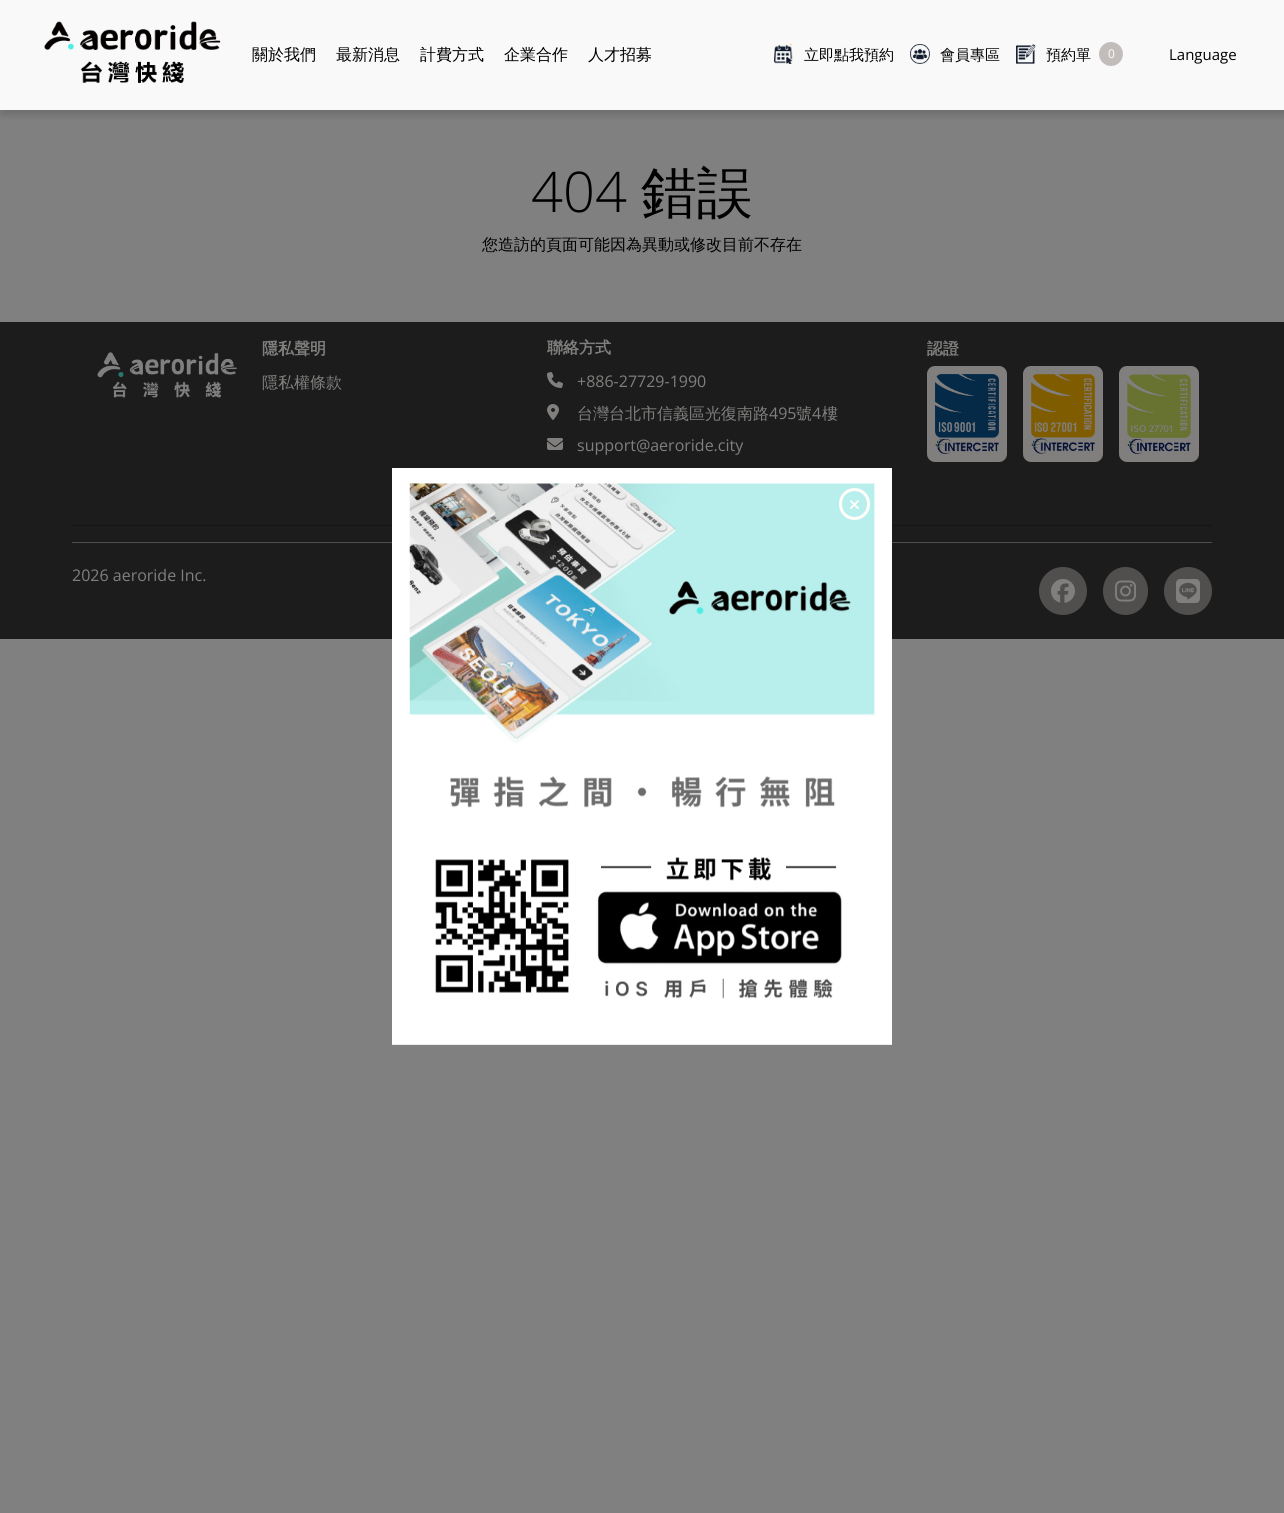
#include <cairo/cairo.h>
#include <math.h>
#include <stddef.h>


static void rounded_rect(cairo_t *cr, double x, double y, double w, double h, double r) {
  cairo_new_sub_path(cr);
  cairo_arc(cr, x + w - r, y + h - r, r, 0, M_PI / 2);
  cairo_arc(cr, x + r, y + h - r, r, M_PI / 2, M_PI);
  cairo_arc(cr, x + r, y + r, r, M_PI, 1.5 * M_PI);
  cairo_arc(cr, x + w - r, y + r, r, 1.5 * M_PI, 2 * M_PI);
  cairo_close_path(cr);
}

static void draw_shadow(cairo_t *cr, double x, double y, double w, double h, double r, double blur, double alpha) {
  cairo_push_group_with_content(cr, CAIRO_CONTENT_ALPHA);
  cairo_set_operator(cr, CAIRO_OPERATOR_SOURCE);
  for (int i = 15; i >= -15 && fmin(w, h) + blur * i / 3 > 0; i -= 2) {
    double e = blur * i / 6;
    cairo_set_source_rgba(cr, 0, 0, 0, alpha * erfc((i - 1) / 8.5) / 2);
    rounded_rect(cr, x - e, y - e, w + 2 * e, h + 2 * e, fmax(0, fmin(r + e + blur * .6, fmin(w, h) / 2 + e)));
    cairo_fill(cr);
  }
  cairo_pattern_t *soft = cairo_pop_group(cr);
  cairo_mask(cr, soft);
  cairo_pattern_destroy(soft);
}

static void draw_image(cairo_t *cr, const char *path, double x, double y, double w, double h) {
  cairo_surface_t *image = cairo_image_surface_create_from_png(path);
  cairo_save(cr);
  cairo_set_source_surface(cr, image, x, y);
  cairo_rectangle(cr, x, y, w, h);
  cairo_fill(cr);
  cairo_restore(cr);
  cairo_surface_destroy(image);
}

static void draw(cairo_t *cr) {
  cairo_set_source_rgb(cr, 128 / 255.0, 128 / 255.0, 128 / 255.0);
  cairo_paint(cr);
  cairo_set_source_rgb(cr, 67 / 255.0, 67 / 255.0, 67 / 255.0);
  draw_shadow(cr, 1, 1, 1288, 114, 0, 3.5, 0.3);
  cairo_set_source_rgb(cr, 249 / 255.0, 249 / 255.0, 249 / 255.0);
  cairo_rectangle(cr, 0, 0, 1284, 110);
  cairo_fill(cr);
  draw_image(cr, "images/1.png", 44, 21, 177, 62);
  draw_image(cr, "images/2.png", 774, 44, 19, 20);
  draw_image(cr, "images/3.png", 910, 44, 20, 20);
  draw_image(cr, "images/4.png", 1016, 44, 20, 20);
  cairo_set_source_rgb(cr, 194 / 255.0, 189 / 255.0, 186 / 255.0);
  cairo_arc(cr, 1111, 54, 12, 0, 2 * M_PI);
  cairo_fill(cr);
  cairo_set_source_rgb(cr, 28 / 255.0, 28 / 255.0, 28 / 255.0);
  cairo_rectangle(cr, 0, 322, 1284, 317);
  cairo_fill(cr);
  draw_image(cr, "images/5.png", 547, 372, 16, 16);
  draw_image(cr, "images/6.png", 547, 404, 12, 16);
  draw_image(cr, "images/7.png", 547, 438, 16, 12);
  cairo_set_source_rgb(cr, 128 / 255.0, 127 / 255.0, 126 / 255.0);
  rounded_rect(cr, 927, 366, 80, 96, 8);
  cairo_fill(cr);
  draw_image(cr, "images/8.png", 935, 374, 64, 80);
  rounded_rect(cr, 1023, 366, 80, 96, 8);
  cairo_fill(cr);
  draw_image(cr, "images/9.png", 1031, 374, 64, 80);
  rounded_rect(cr, 1119, 366, 80, 96, 8);
  cairo_fill(cr);
  draw_image(cr, "images/10.png", 1127, 374, 64, 80);
  draw_image(cr, "images/11.png", 97, 352, 140, 46);
  cairo_set_source_rgb(cr, 21 / 255.0, 21 / 255.0, 21 / 255.0);
  cairo_rectangle(cr, 72, 525, 1140, 1);
  cairo_fill(cr);
  cairo_set_source_rgb(cr, 81 / 255.0, 79 / 255.0, 78 / 255.0);
  cairo_rectangle(cr, 72, 542, 1140, 1);
  cairo_fill(cr);
  cairo_arc(cr, 1063, 591, 24, 0, 2 * M_PI);
  cairo_fill(cr);
  draw_image(cr, "images/12.png", 1051, 579, 24, 24);
  cairo_new_path(cr);
  cairo_move_to(cr, 1125.5, 567);
  cairo_curve_to(cr, 1138, 567, 1148, 577.5, 1148, 591);
  cairo_curve_to(cr, 1148, 604.5, 1138, 615, 1125.5, 615);
  cairo_curve_to(cr, 1113, 615, 1103, 604.5, 1103, 591);
  cairo_curve_to(cr, 1103, 577.5, 1113, 567, 1125.5, 567);
  cairo_close_path(cr);
  cairo_fill(cr);
  draw_image(cr, "images/13.png", 1115, 580, 21, 22);
  cairo_arc(cr, 1188, 591, 24, 0, 2 * M_PI);
  cairo_fill(cr);
  draw_image(cr, "images/14.png", 1176, 579, 24, 24);
  draw_image(cr, "images/15.png", 392, 468, 500, 577);
  rounded_rect(cr, 840.5, 489.5, 28, 29, 14);
  cairo_set_source_rgb(cr, 1, 254 / 255.0, 251 / 255.0);
  cairo_set_line_width(cr, 3);
  cairo_stroke(cr);
  draw_image(cr, "images/16.png", 850, 500, 9, 9);
  cairo_select_font_face(cr, "WenQuanYi Zen Hei Medium", CAIRO_FONT_SLANT_NORMAL, CAIRO_FONT_WEIGHT_NORMAL);
  cairo_set_font_size(cr, 16);
  cairo_set_source_rgb(cr, 0, 0, 0);
  cairo_move_to(cr, 252, 60);
  cairo_show_text(cr, "關於我們");
  cairo_move_to(cr, 336, 60);
  cairo_show_text(cr, "最新消息");
  cairo_move_to(cr, 420, 60);
  cairo_show_text(cr, "計費方式");
  cairo_move_to(cr, 504, 60);
  cairo_show_text(cr, "企業合作");
  cairo_move_to(cr, 588, 60);
  cairo_show_text(cr, "人才招募");
  cairo_set_font_size(cr, 15);
  cairo_move_to(cr, 804, 60);
  cairo_show_text(cr, "立即點我預約");
  cairo_move_to(cr, 940, 60);
  cairo_show_text(cr, "會員專區");
  cairo_move_to(cr, 1046, 60);
  cairo_show_text(cr, "預約單");
  cairo_select_font_face(cr, "Open Sans", CAIRO_FONT_SLANT_NORMAL, CAIRO_FONT_WEIGHT_NORMAL);
  cairo_set_font_size(cr, 12);
  cairo_set_source_rgb(cr, 1, 254 / 255.0, 251 / 255.0);
  cairo_move_to(cr, 1108, 58);
  cairo_show_text(cr, "0");
  cairo_set_font_size(cr, 15);
  cairo_set_source_rgb(cr, 0, 0, 0);
  cairo_move_to(cr, 1169, 60);
  cairo_show_text(cr, "Language");
  cairo_select_font_face(cr, "Open Sans Light", CAIRO_FONT_SLANT_NORMAL, CAIRO_FONT_WEIGHT_NORMAL);
  cairo_set_font_size(cr, 56);
  cairo_move_to(cr, 531, 212);
  cairo_show_text(cr, "404");
  cairo_select_font_face(cr, "WenQuanYi Zen Hei Medium", CAIRO_FONT_SLANT_NORMAL, CAIRO_FONT_WEIGHT_NORMAL);
  cairo_move_to(cr, 641, 212);
  cairo_show_text(cr, "錯誤");
  cairo_set_font_size(cr, 16);
  cairo_move_to(cr, 482, 250);
  cairo_show_text(cr, "您造訪的頁面可能因為異動或修改目前不存在");
  cairo_select_font_face(cr, "WenQuanYi Zen Hei", CAIRO_FONT_SLANT_NORMAL, CAIRO_FONT_WEIGHT_BOLD);
  cairo_set_source_rgb(cr, 128 / 255.0, 127 / 255.0, 126 / 255.0);
  cairo_move_to(cr, 262, 354);
  cairo_show_text(cr, "隱私聲明");
  cairo_select_font_face(cr, "WenQuanYi Zen Hei Medium", CAIRO_FONT_SLANT_NORMAL, CAIRO_FONT_WEIGHT_NORMAL);
  cairo_move_to(cr, 262, 388);
  cairo_show_text(cr, "隱私權條款");
  cairo_select_font_face(cr, "WenQuanYi Zen Hei", CAIRO_FONT_SLANT_NORMAL, CAIRO_FONT_WEIGHT_BOLD);
  cairo_move_to(cr, 547, 353);
  cairo_show_text(cr, "聯絡方式");
  cairo_select_font_face(cr, "Open Sans", CAIRO_FONT_SLANT_NORMAL, CAIRO_FONT_WEIGHT_NORMAL);
  cairo_move_to(cr, 577, 387);
  cairo_show_text(cr, "+886-27729-1990");
  cairo_select_font_face(cr, "WenQuanYi Zen Hei Medium", CAIRO_FONT_SLANT_NORMAL, CAIRO_FONT_WEIGHT_NORMAL);
  cairo_move_to(cr, 577, 419);
  cairo_show_text(cr, "台灣台北市信義區光復南路");
  cairo_select_font_face(cr, "Open Sans", CAIRO_FONT_SLANT_NORMAL, CAIRO_FONT_WEIGHT_NORMAL);
  cairo_move_to(cr, 769, 419);
  cairo_show_text(cr, "495");
  cairo_select_font_face(cr, "WenQuanYi Zen Hei Medium", CAIRO_FONT_SLANT_NORMAL, CAIRO_FONT_WEIGHT_NORMAL);
  cairo_move_to(cr, 796, 419);
  cairo_show_text(cr, "號");
  cairo_select_font_face(cr, "Open Sans", CAIRO_FONT_SLANT_NORMAL, CAIRO_FONT_WEIGHT_NORMAL);
  cairo_move_to(cr, 812, 419);
  cairo_show_text(cr, "4");
  cairo_select_font_face(cr, "WenQuanYi Zen Hei Medium", CAIRO_FONT_SLANT_NORMAL, CAIRO_FONT_WEIGHT_NORMAL);
  cairo_move_to(cr, 822, 419);
  cairo_show_text(cr, "樓");
  cairo_select_font_face(cr, "Open Sans", CAIRO_FONT_SLANT_NORMAL, CAIRO_FONT_WEIGHT_NORMAL);
  cairo_move_to(cr, 577, 451);
  cairo_show_text(cr, "support@aeroride.city");
  cairo_select_font_face(cr, "WenQuanYi Zen Hei", CAIRO_FONT_SLANT_NORMAL, CAIRO_FONT_WEIGHT_BOLD);
  cairo_move_to(cr, 927, 354);
  cairo_show_text(cr, "認證");
  cairo_select_font_face(cr, "Open Sans", CAIRO_FONT_SLANT_NORMAL, CAIRO_FONT_WEIGHT_NORMAL);
  cairo_move_to(cr, 72, 581);
  cairo_show_text(cr, "2026 aeroride Inc.");
}

int main(void) {
  cairo_surface_t *surface = cairo_image_surface_create(CAIRO_FORMAT_RGB24, 1284, 1513);
  cairo_t *cr = cairo_create(surface);
  cairo_font_options_t *options = cairo_font_options_create();
  cairo_font_options_set_hint_metrics(options, CAIRO_HINT_METRICS_OFF);
  cairo_font_options_set_hint_style(options, CAIRO_HINT_STYLE_NONE);
  cairo_set_font_options(cr, options);
  cairo_set_miter_limit(cr, 4);
  draw(cr);
  cairo_surface_write_to_png(surface, "out.png");
  cairo_font_options_destroy(options);
  cairo_destroy(cr);
  cairo_surface_destroy(surface);
  return 0;
}
